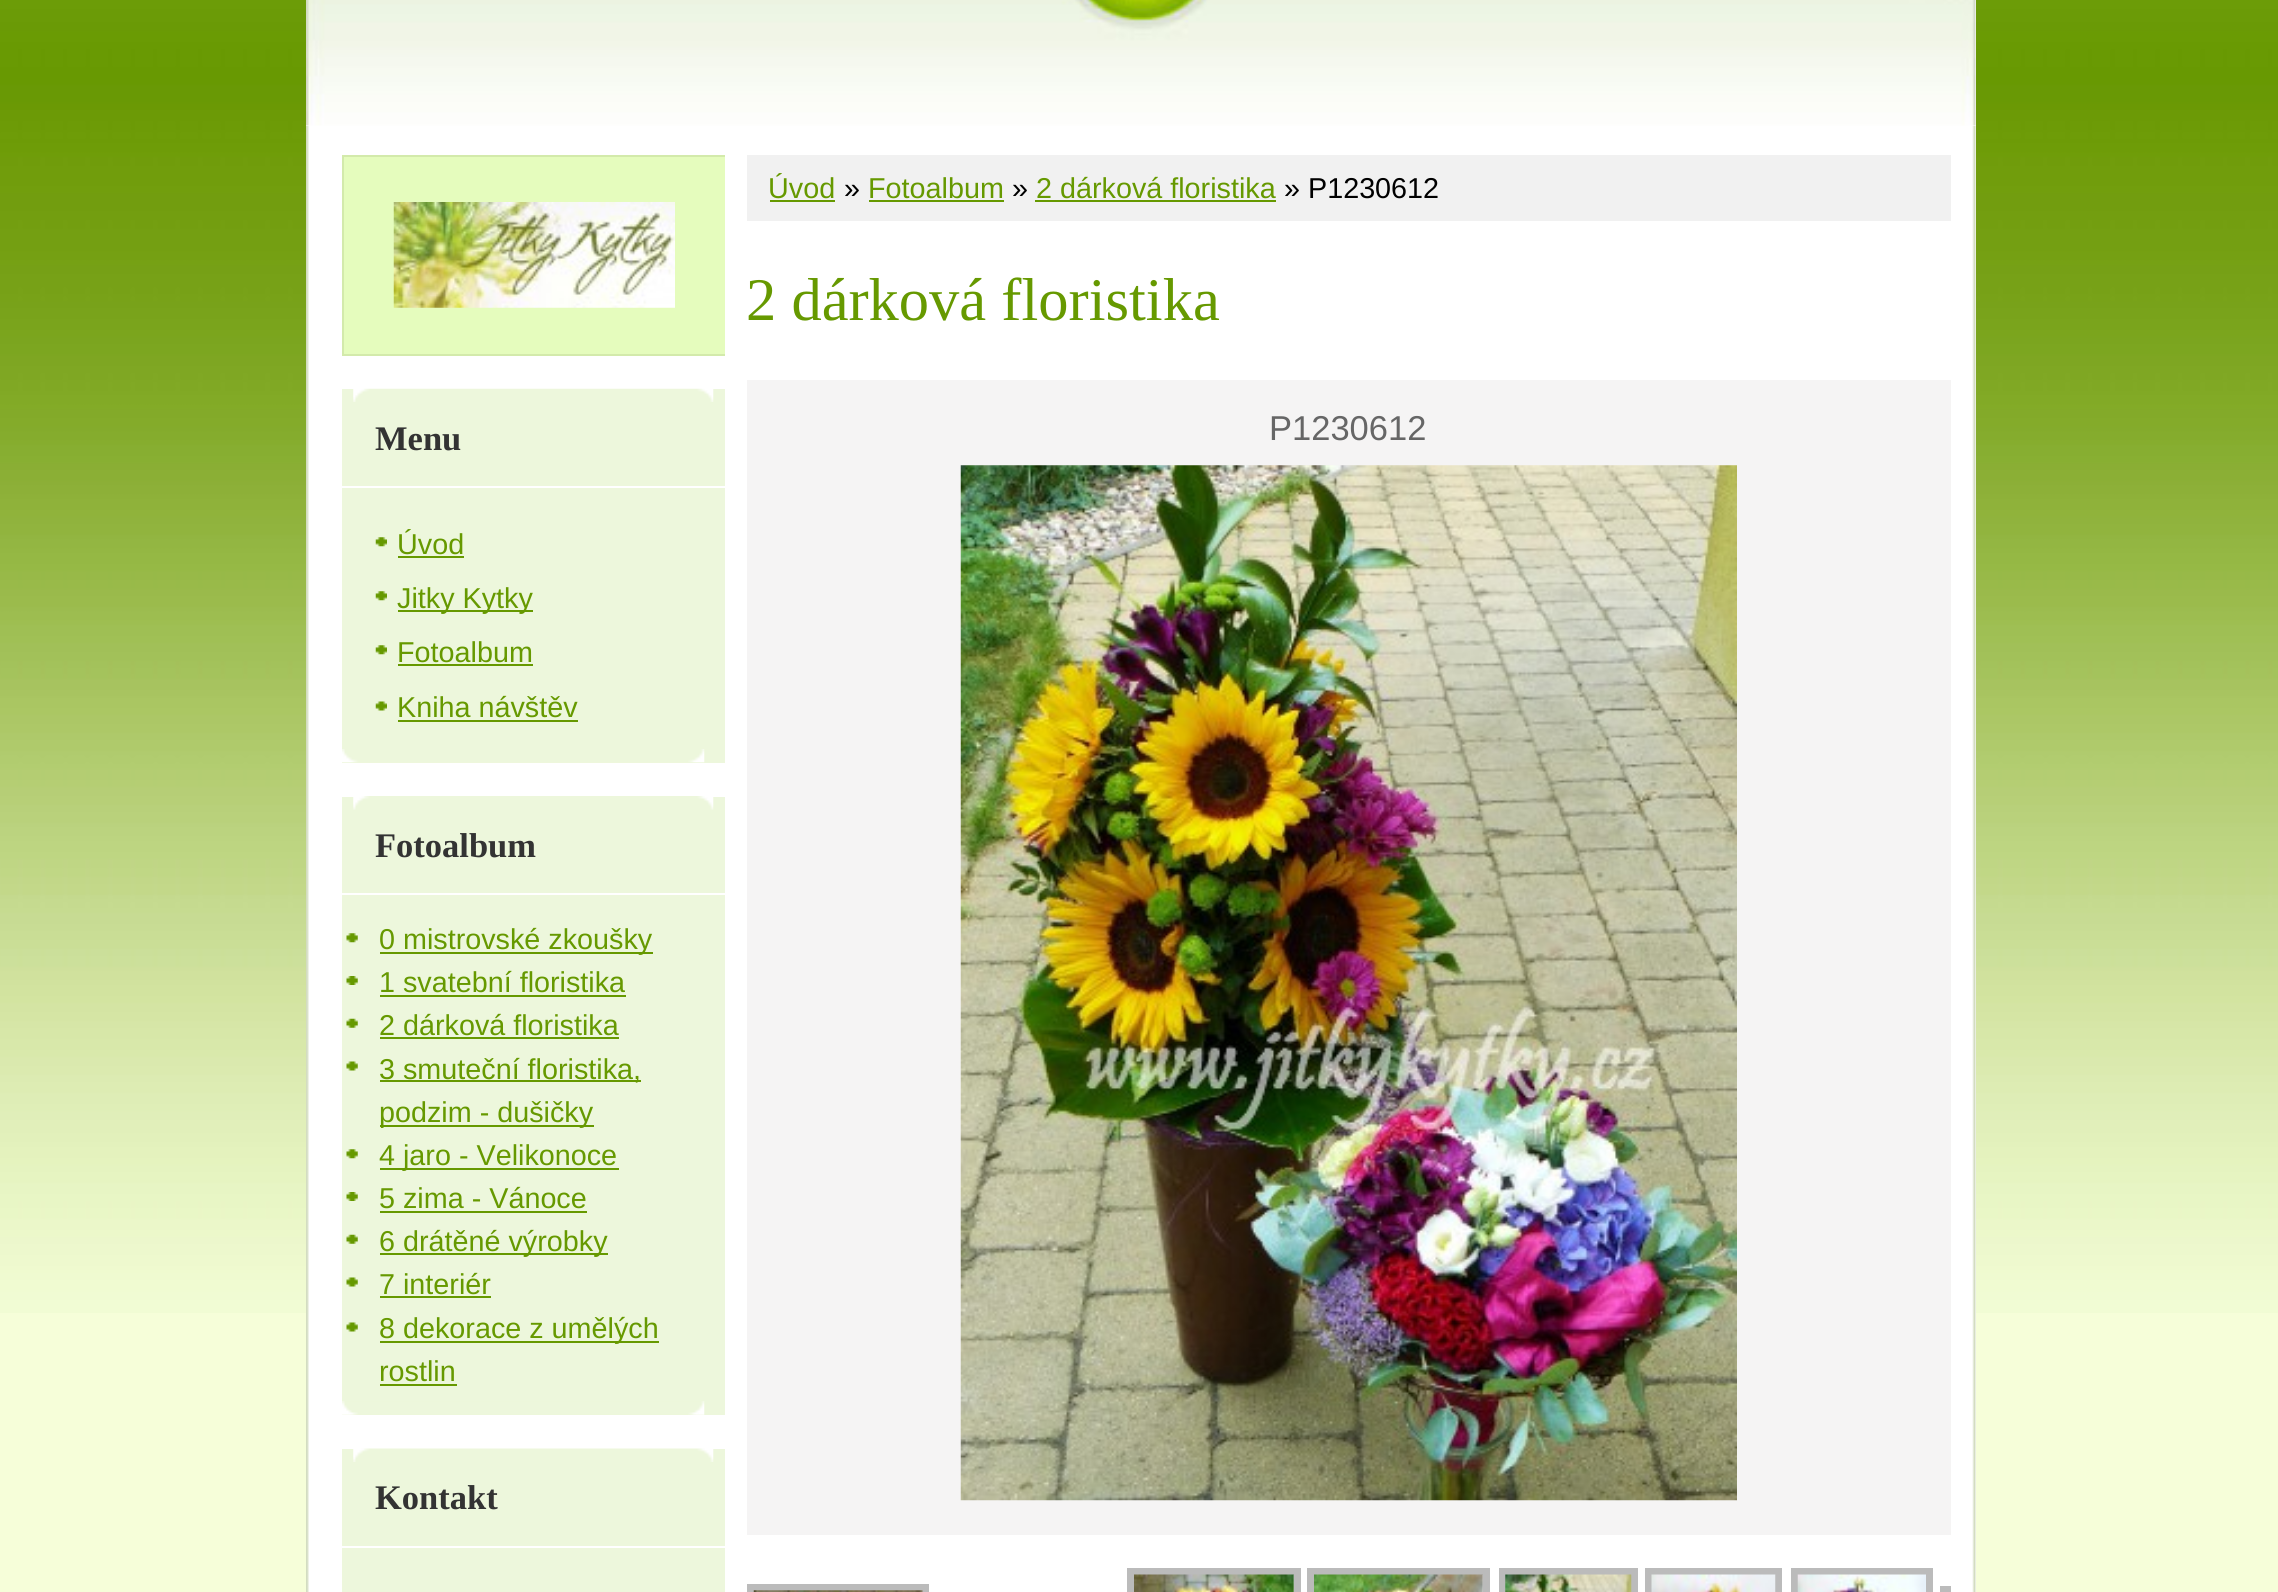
#include <cairo/cairo.h>
#include <math.h>
#include <stddef.h>


static void draw_image(cairo_t *cr, const char *path, double x, double y, double w, double h) {
  cairo_surface_t *image = cairo_image_surface_create_from_png(path);
  cairo_save(cr);
  cairo_set_source_surface(cr, image, x, y);
  cairo_rectangle(cr, x, y, w, h);
  cairo_fill(cr);
  cairo_restore(cr);
  cairo_surface_destroy(image);
}

static void draw(cairo_t *cr) {
  cairo_set_source_rgb(cr, 246 / 255.0, 254 / 255.0, 217 / 255.0);
  cairo_paint(cr);
  draw_image(cr, "images/1.png", 0, 0, 2278, 1313);
  cairo_set_source_rgb(cr, 1, 1, 1);
  cairo_rectangle(cr, 1975, 126, 1, 1466);
  cairo_fill(cr);
  draw_image(cr, "images/2.png", 306, 126, 1670, 1466);
  cairo_rectangle(cr, 306, 0, 1670, 126);
  cairo_fill(cr);
  draw_image(cr, "images/3.png", 306, 0, 1670, 126);
  cairo_set_source_rgb(cr, 241 / 255.0, 241 / 255.0, 241 / 255.0);
  cairo_rectangle(cr, 747, 155, 1204, 66);
  cairo_fill(cr);
  cairo_set_source_rgb(cr, 102 / 255.0, 153 / 255.0, 0);
  cairo_rectangle(cr, 770, 200, 65, 2);
  cairo_fill(cr);
  cairo_rectangle(cr, 869, 200, 135, 2);
  cairo_fill(cr);
  cairo_rectangle(cr, 1035, 200, 241, 2);
  cairo_fill(cr);
  cairo_set_source_rgb(cr, 245 / 255.0, 244 / 255.0, 244 / 255.0);
  cairo_rectangle(cr, 747, 380, 1204, 1155);
  cairo_fill(cr);
  draw_image(cr, "images/4.png", 960, 465, 777, 1036);
  cairo_rectangle(cr, 1130.5, 1571.5, 167, 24);
  cairo_set_source_rgb(cr, 187 / 255.0, 187 / 255.0, 187 / 255.0);
  cairo_set_line_width(cr, 7);
  cairo_stroke(cr);
  cairo_rectangle(cr, 1310.5, 1571.5, 176, 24);
  cairo_stroke(cr);
  cairo_rectangle(cr, 1502.5, 1571.5, 132, 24);
  cairo_stroke(cr);
  cairo_rectangle(cr, 1648.5, 1571.5, 130, 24);
  cairo_stroke(cr);
  cairo_rectangle(cr, 1794.5, 1571.5, 135, 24);
  cairo_stroke(cr);
  cairo_rectangle(cr, 750.5, 1587.5, 175, 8);
  cairo_stroke(cr);
  draw_image(cr, "images/5.png", 1134, 1574, 160, 18);
  draw_image(cr, "images/6.png", 1314, 1574, 169, 18);
  draw_image(cr, "images/7.png", 1505, 1574, 127, 18);
  draw_image(cr, "images/8.png", 1651, 1574, 125, 18);
  draw_image(cr, "images/9.png", 1797, 1574, 129, 18);
  cairo_save(cr);
  cairo_rectangle(cr, 747, 1568, 1204, 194);
  cairo_clip(cr);
  cairo_rectangle(cr, 1943.5, 1589.5, 175, 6);
  cairo_stroke(cr);
  cairo_restore(cr);
  draw_image(cr, "images/10.png", 753, 1590, 170, 2);
  cairo_set_source_rgb(cr, 229 / 255.0, 252 / 255.0, 189 / 255.0);
  cairo_rectangle(cr, 344, 157, 381, 197);
  cairo_fill(cr);
  cairo_save(cr);
  cairo_rectangle(cr, 342, 155, 383, 234);
  cairo_clip(cr);
  cairo_rectangle(cr, 343, 156, 385, 199);
  cairo_set_source_rgb(cr, 211 / 255.0, 234 / 255.0, 171 / 255.0);
  cairo_set_line_width(cr, 2);
  cairo_stroke(cr);
  cairo_restore(cr);
  draw_image(cr, "images/11.png", 393, 202, 282, 106);
  cairo_set_source_rgb(cr, 237 / 255.0, 247 / 255.0, 220 / 255.0);
  cairo_rectangle(cr, 342, 389, 383, 374);
  cairo_fill(cr);
  draw_image(cr, "images/12.png", 342, 749, 363, 14);
  draw_image(cr, "images/13.png", 353, 388, 361, 14);
  cairo_set_source_rgb(cr, 1, 1, 1);
  cairo_rectangle(cr, 342, 486, 383, 2);
  cairo_fill(cr);
  draw_image(cr, "images/14.png", 375, 537, 12, 10);
  cairo_set_source_rgb(cr, 102 / 255.0, 153 / 255.0, 0);
  cairo_rectangle(cr, 398, 556, 66, 2);
  cairo_fill(cr);
  draw_image(cr, "images/14.png", 375, 591, 12, 10);
  cairo_rectangle(cr, 398, 610, 135, 2);
  cairo_fill(cr);
  draw_image(cr, "images/14.png", 375, 645, 12, 10);
  cairo_rectangle(cr, 398, 664, 135, 2);
  cairo_fill(cr);
  draw_image(cr, "images/15.png", 375, 701, 12, 10);
  cairo_rectangle(cr, 398, 720, 180, 2);
  cairo_fill(cr);
  cairo_set_source_rgb(cr, 237 / 255.0, 247 / 255.0, 220 / 255.0);
  cairo_rectangle(cr, 342, 797, 383, 618);
  cairo_fill(cr);
  draw_image(cr, "images/16.png", 342, 1401, 363, 14);
  draw_image(cr, "images/17.png", 353, 796, 361, 14);
  cairo_set_source_rgb(cr, 1, 1, 1);
  cairo_rectangle(cr, 342, 893, 383, 2);
  cairo_fill(cr);
  draw_image(cr, "images/18.png", 346, 933, 12, 10);
  cairo_set_source_rgb(cr, 102 / 255.0, 153 / 255.0, 0);
  cairo_rectangle(cr, 380, 952, 273, 2);
  cairo_fill(cr);
  draw_image(cr, "images/19.png", 346, 976, 12, 9);
  cairo_rectangle(cr, 380, 995, 246, 2);
  cairo_fill(cr);
  draw_image(cr, "images/20.png", 346, 1018, 12, 10);
  cairo_rectangle(cr, 380, 1037, 239, 2);
  cairo_fill(cr);
  draw_image(cr, "images/21.png", 346, 1061, 12, 10);
  cairo_rectangle(cr, 380, 1080, 261, 2);
  cairo_fill(cr);
  cairo_rectangle(cr, 380, 1125, 214, 2);
  cairo_fill(cr);
  draw_image(cr, "images/18.png", 346, 1149, 12, 10);
  cairo_rectangle(cr, 380, 1168, 239, 2);
  cairo_fill(cr);
  draw_image(cr, "images/19.png", 346, 1192, 12, 9);
  cairo_rectangle(cr, 380, 1211, 207, 2);
  cairo_fill(cr);
  draw_image(cr, "images/20.png", 346, 1234, 12, 10);
  cairo_rectangle(cr, 380, 1253, 228, 2);
  cairo_fill(cr);
  draw_image(cr, "images/21.png", 346, 1277, 12, 10);
  cairo_rectangle(cr, 380, 1296, 111, 2);
  cairo_fill(cr);
  draw_image(cr, "images/21.png", 346, 1322, 12, 10);
  cairo_rectangle(cr, 380, 1341, 279, 2);
  cairo_fill(cr);
  cairo_rectangle(cr, 380, 1384, 77, 2);
  cairo_fill(cr);
  cairo_set_source_rgb(cr, 237 / 255.0, 247 / 255.0, 220 / 255.0);
  cairo_rectangle(cr, 342, 1449, 383, 143);
  cairo_fill(cr);
  draw_image(cr, "images/22.png", 353, 1448, 361, 14);
  cairo_set_source_rgb(cr, 1, 1, 1);
  cairo_rectangle(cr, 342, 1546, 383, 2);
  cairo_fill(cr);
  cairo_select_font_face(cr, "Liberation Sans", CAIRO_FONT_SLANT_NORMAL, CAIRO_FONT_WEIGHT_NORMAL);
  cairo_set_font_size(cr, 28.75);
  cairo_set_source_rgb(cr, 102 / 255.0, 153 / 255.0, 0);
  cairo_move_to(cr, 768, 198);
  cairo_show_text(cr, "Úvod");
  cairo_set_source_rgb(cr, 0, 0, 0);
  cairo_move_to(cr, 844, 198);
  cairo_show_text(cr, "»");
  cairo_set_source_rgb(cr, 102 / 255.0, 153 / 255.0, 0);
  cairo_move_to(cr, 868, 198);
  cairo_show_text(cr, "Fotoalbum");
  cairo_set_source_rgb(cr, 0, 0, 0);
  cairo_move_to(cr, 1012, 198);
  cairo_show_text(cr, "»");
  cairo_set_source_rgb(cr, 102 / 255.0, 153 / 255.0, 0);
  cairo_move_to(cr, 1036, 198);
  cairo_show_text(cr, "2 dárková floristika");
  cairo_set_source_rgb(cr, 0, 0, 0);
  cairo_move_to(cr, 1284, 198);
  cairo_show_text(cr, "» P1230612");
  cairo_select_font_face(cr, "Liberation Serif", CAIRO_FONT_SLANT_NORMAL, CAIRO_FONT_WEIGHT_NORMAL);
  cairo_set_font_size(cr, 60.5);
  cairo_set_source_rgb(cr, 102 / 255.0, 153 / 255.0, 0);
  cairo_move_to(cr, 746, 320);
  cairo_show_text(cr, "2 dárková floristika");
  cairo_select_font_face(cr, "Liberation Sans", CAIRO_FONT_SLANT_NORMAL, CAIRO_FONT_WEIGHT_NORMAL);
  cairo_set_font_size(cr, 34.5);
  cairo_set_source_rgb(cr, 102 / 255.0, 102 / 255.0, 102 / 255.0);
  cairo_move_to(cr, 1269, 440);
  cairo_show_text(cr, "P1230612");
  cairo_select_font_face(cr, "Liberation Serif", CAIRO_FONT_SLANT_NORMAL, CAIRO_FONT_WEIGHT_BOLD);
  cairo_set_source_rgb(cr, 51 / 255.0, 51 / 255.0, 51 / 255.0);
  cairo_move_to(cr, 375, 450);
  cairo_show_text(cr, "Menu");
  cairo_select_font_face(cr, "Liberation Sans", CAIRO_FONT_SLANT_NORMAL, CAIRO_FONT_WEIGHT_NORMAL);
  cairo_set_font_size(cr, 28.75);
  cairo_set_source_rgb(cr, 102 / 255.0, 153 / 255.0, 0);
  cairo_move_to(cr, 397, 554);
  cairo_show_text(cr, "Úvod");
  cairo_move_to(cr, 397, 608);
  cairo_show_text(cr, "Jitky Kytky");
  cairo_move_to(cr, 397, 662);
  cairo_show_text(cr, "Fotoalbum");
  cairo_move_to(cr, 397, 717);
  cairo_show_text(cr, "Kniha návštěv");
  cairo_select_font_face(cr, "Liberation Serif", CAIRO_FONT_SLANT_NORMAL, CAIRO_FONT_WEIGHT_BOLD);
  cairo_set_font_size(cr, 34.5);
  cairo_set_source_rgb(cr, 51 / 255.0, 51 / 255.0, 51 / 255.0);
  cairo_move_to(cr, 375, 857);
  cairo_show_text(cr, "Fotoalbum");
  cairo_select_font_face(cr, "Liberation Sans", CAIRO_FONT_SLANT_NORMAL, CAIRO_FONT_WEIGHT_NORMAL);
  cairo_set_font_size(cr, 28.75);
  cairo_set_source_rgb(cr, 102 / 255.0, 153 / 255.0, 0);
  cairo_move_to(cr, 379, 949);
  cairo_show_text(cr, "0 mistrovské zkoušky");
  cairo_move_to(cr, 379, 992);
  cairo_show_text(cr, "1 svatební floristika");
  cairo_move_to(cr, 379, 1035);
  cairo_show_text(cr, "2 dárková floristika");
  cairo_move_to(cr, 379, 1079);
  cairo_show_text(cr, "3 smuteční floristika,");
  cairo_move_to(cr, 379, 1122);
  cairo_show_text(cr, "podzim - dušičky");
  cairo_move_to(cr, 379, 1165);
  cairo_show_text(cr, "4 jaro - Velikonoce");
  cairo_move_to(cr, 379, 1208);
  cairo_show_text(cr, "5 zima - Vánoce");
  cairo_move_to(cr, 379, 1251);
  cairo_show_text(cr, "6 drátěné výrobky");
  cairo_move_to(cr, 379, 1294);
  cairo_show_text(cr, "7 interiér");
  cairo_move_to(cr, 379, 1338);
  cairo_show_text(cr, "8 dekorace z umělých");
  cairo_move_to(cr, 379, 1381);
  cairo_show_text(cr, "rostlin");
  cairo_select_font_face(cr, "Liberation Serif", CAIRO_FONT_SLANT_NORMAL, CAIRO_FONT_WEIGHT_BOLD);
  cairo_set_font_size(cr, 34.5);
  cairo_set_source_rgb(cr, 51 / 255.0, 51 / 255.0, 51 / 255.0);
  cairo_move_to(cr, 375, 1509);
  cairo_show_text(cr, "Kontakt");
}

int main(void) {
  cairo_surface_t *surface = cairo_image_surface_create(CAIRO_FORMAT_RGB24, 2278, 1592);
  cairo_t *cr = cairo_create(surface);
  cairo_font_options_t *options = cairo_font_options_create();
  cairo_font_options_set_hint_metrics(options, CAIRO_HINT_METRICS_OFF);
  cairo_font_options_set_hint_style(options, CAIRO_HINT_STYLE_NONE);
  cairo_set_font_options(cr, options);
  cairo_set_miter_limit(cr, 4);
  draw(cr);
  cairo_surface_write_to_png(surface, "out.png");
  cairo_font_options_destroy(options);
  cairo_destroy(cr);
  cairo_surface_destroy(surface);
  return 0;
}
